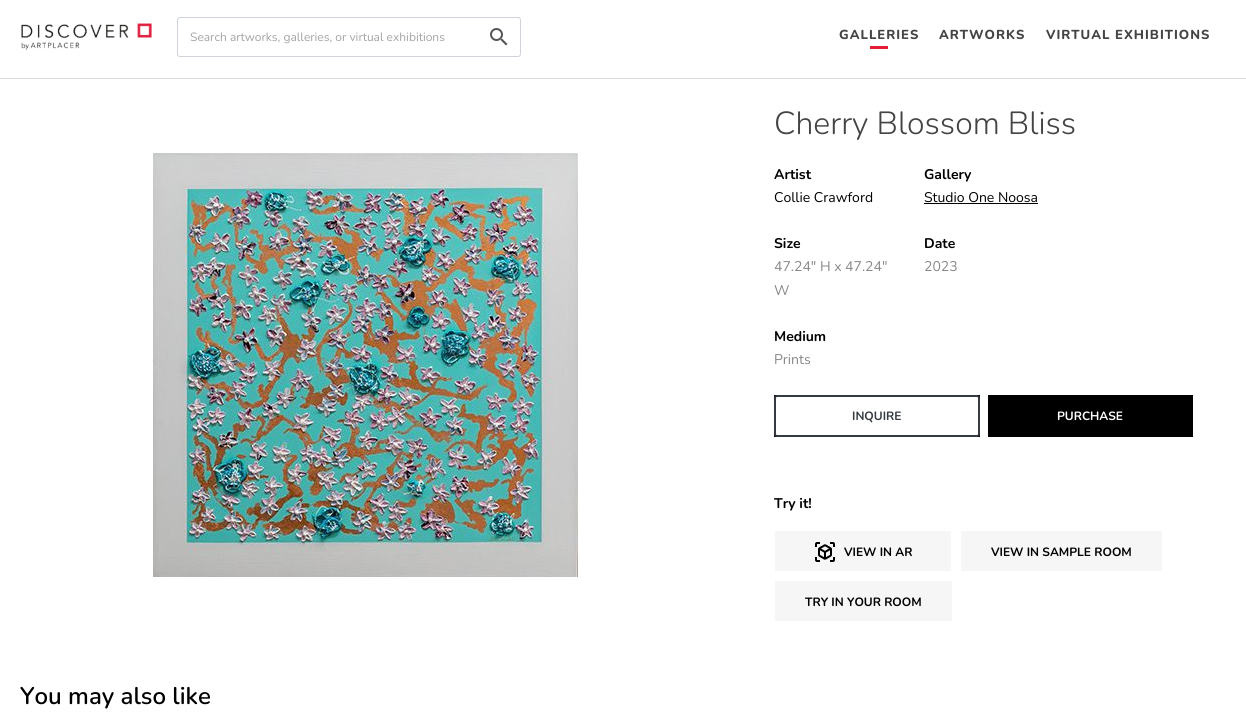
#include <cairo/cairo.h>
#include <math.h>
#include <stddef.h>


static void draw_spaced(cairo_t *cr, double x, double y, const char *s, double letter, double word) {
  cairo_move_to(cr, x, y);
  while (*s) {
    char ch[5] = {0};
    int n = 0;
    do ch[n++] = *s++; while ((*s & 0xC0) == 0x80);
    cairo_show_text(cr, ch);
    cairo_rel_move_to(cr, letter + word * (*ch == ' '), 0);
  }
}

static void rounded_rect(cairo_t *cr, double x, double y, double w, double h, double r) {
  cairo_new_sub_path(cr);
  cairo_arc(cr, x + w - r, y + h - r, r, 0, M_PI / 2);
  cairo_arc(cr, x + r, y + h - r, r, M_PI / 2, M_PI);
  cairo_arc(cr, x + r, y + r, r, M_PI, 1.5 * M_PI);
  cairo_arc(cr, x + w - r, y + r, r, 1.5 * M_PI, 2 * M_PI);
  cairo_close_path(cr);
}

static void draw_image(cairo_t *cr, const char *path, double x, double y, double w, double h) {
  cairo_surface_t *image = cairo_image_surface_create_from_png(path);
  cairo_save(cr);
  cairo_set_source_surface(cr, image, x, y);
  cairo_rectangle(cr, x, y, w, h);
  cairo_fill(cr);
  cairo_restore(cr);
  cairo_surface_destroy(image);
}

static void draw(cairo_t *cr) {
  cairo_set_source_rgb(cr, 1, 1, 1);
  cairo_paint(cr);
  cairo_set_source_rgb(cr, 217 / 255.0, 217 / 255.0, 217 / 255.0);
  cairo_rectangle(cr, 0, 78, 1246, 1);
  cairo_fill(cr);
  draw_image(cr, "images/1.png", 21, 23, 131, 27);
  rounded_rect(cr, 177.5, 17.5, 343, 39, 2.5);
  cairo_set_source_rgb(cr, 206 / 255.0, 212 / 255.0, 218 / 255.0);
  cairo_set_line_width(cr, 1);
  cairo_stroke(cr);
  draw_image(cr, "images/2.png", 490, 28, 18, 18);
  cairo_set_source_rgb(cr, 227 / 255.0, 30 / 255.0, 54 / 255.0);
  cairo_rectangle(cr, 870, 46, 18, 3);
  cairo_fill(cr);
  draw_image(cr, "images/3.png", 153, 153, 425, 424);
  cairo_set_source_rgb(cr, 0, 0, 0);
  cairo_rectangle(cr, 924, 203, 114, 1);
  cairo_fill(cr);
  cairo_rectangle(cr, 774, 395, 206, 42);
  cairo_fill(cr);
  cairo_set_source_rgb(cr, 1, 1, 1);
  rounded_rect(cr, 775, 396, 204, 40, 2);
  cairo_fill_preserve(cr);
  cairo_set_source_rgb(cr, 52 / 255.0, 58 / 255.0, 64 / 255.0);
  cairo_set_line_width(cr, 2);
  cairo_stroke(cr);
  cairo_set_source_rgb(cr, 0, 0, 0);
  cairo_rectangle(cr, 988, 395, 205, 42);
  cairo_fill(cr);
  cairo_set_source_rgb(cr, 246 / 255.0, 246 / 255.0, 246 / 255.0);
  cairo_rectangle(cr, 775, 531, 176, 40);
  cairo_fill(cr);
  draw_image(cr, "images/4.png", 815, 542, 20, 20);
  cairo_rectangle(cr, 961, 531, 201, 40);
  cairo_fill(cr);
  cairo_rectangle(cr, 775, 581, 177, 40);
  cairo_fill(cr);
  cairo_select_font_face(cr, "Nunito", CAIRO_FONT_SLANT_NORMAL, CAIRO_FONT_WEIGHT_NORMAL);
  cairo_set_font_size(cr, 12);
  cairo_set_source_rgb(cr, 164 / 255.0, 164 / 255.0, 164 / 255.0);
  cairo_move_to(cr, 190, 41);
  cairo_show_text(cr, "Search artworks, galleries, or virtual exhibitions");
  cairo_select_font_face(cr, "Nunito ExtraBold", CAIRO_FONT_SLANT_NORMAL, CAIRO_FONT_WEIGHT_NORMAL);
  cairo_set_font_size(cr, 13);
  cairo_set_source_rgb(cr, 68 / 255.0, 68 / 255.0, 68 / 255.0);
  draw_spaced(cr, 839, 39, "GALLERIES", 1, 0);
  draw_spaced(cr, 939, 39, "ARTWORKS", 1, 0);
  draw_spaced(cr, 1046, 39, "VIRTUAL EXHIBITIONS", 1, 0);
  cairo_select_font_face(cr, "Nunito Light", CAIRO_FONT_SLANT_NORMAL, CAIRO_FONT_WEIGHT_NORMAL);
  cairo_set_font_size(cr, 32);
  cairo_move_to(cr, 774, 134);
  cairo_show_text(cr, "Cherry Blossom Bliss");
  cairo_select_font_face(cr, "Nunito", CAIRO_FONT_SLANT_NORMAL, CAIRO_FONT_WEIGHT_BOLD);
  cairo_set_font_size(cr, 14);
  cairo_set_source_rgb(cr, 0, 0, 0);
  cairo_move_to(cr, 774, 179);
  cairo_show_text(cr, "Artist");
  cairo_select_font_face(cr, "Nunito", CAIRO_FONT_SLANT_NORMAL, CAIRO_FONT_WEIGHT_NORMAL);
  cairo_move_to(cr, 774, 202);
  cairo_show_text(cr, "Collie Crawford");
  cairo_select_font_face(cr, "Nunito", CAIRO_FONT_SLANT_NORMAL, CAIRO_FONT_WEIGHT_BOLD);
  cairo_move_to(cr, 924, 179);
  cairo_show_text(cr, "Gallery");
  cairo_select_font_face(cr, "Nunito", CAIRO_FONT_SLANT_NORMAL, CAIRO_FONT_WEIGHT_NORMAL);
  cairo_move_to(cr, 924, 202);
  cairo_show_text(cr, "Studio One Noosa");
  cairo_select_font_face(cr, "Nunito", CAIRO_FONT_SLANT_NORMAL, CAIRO_FONT_WEIGHT_BOLD);
  cairo_move_to(cr, 774, 248);
  cairo_show_text(cr, "Size");
  cairo_select_font_face(cr, "Nunito", CAIRO_FONT_SLANT_NORMAL, CAIRO_FONT_WEIGHT_NORMAL);
  cairo_set_source_rgb(cr, 136 / 255.0, 136 / 255.0, 136 / 255.0);
  cairo_move_to(cr, 774, 271);
  cairo_show_text(cr, "47.24\" H x 47.24\"");
  cairo_move_to(cr, 774, 295);
  cairo_show_text(cr, "W");
  cairo_select_font_face(cr, "Nunito", CAIRO_FONT_SLANT_NORMAL, CAIRO_FONT_WEIGHT_BOLD);
  cairo_set_source_rgb(cr, 0, 0, 0);
  cairo_move_to(cr, 924, 248);
  cairo_show_text(cr, "Date");
  cairo_select_font_face(cr, "Nunito", CAIRO_FONT_SLANT_NORMAL, CAIRO_FONT_WEIGHT_NORMAL);
  cairo_set_source_rgb(cr, 136 / 255.0, 136 / 255.0, 136 / 255.0);
  cairo_move_to(cr, 924, 271);
  cairo_show_text(cr, "2023");
  cairo_select_font_face(cr, "Nunito", CAIRO_FONT_SLANT_NORMAL, CAIRO_FONT_WEIGHT_BOLD);
  cairo_set_source_rgb(cr, 0, 0, 0);
  cairo_move_to(cr, 774, 341);
  cairo_show_text(cr, "Medium");
  cairo_select_font_face(cr, "Nunito", CAIRO_FONT_SLANT_NORMAL, CAIRO_FONT_WEIGHT_NORMAL);
  cairo_set_source_rgb(cr, 136 / 255.0, 136 / 255.0, 136 / 255.0);
  cairo_move_to(cr, 774, 364);
  cairo_show_text(cr, "Prints");
  cairo_select_font_face(cr, "Nunito", CAIRO_FONT_SLANT_NORMAL, CAIRO_FONT_WEIGHT_BOLD);
  cairo_set_font_size(cr, 12);
  cairo_set_source_rgb(cr, 52 / 255.0, 58 / 255.0, 64 / 255.0);
  cairo_move_to(cr, 852, 420);
  cairo_show_text(cr, "INQUIRE");
  cairo_set_source_rgb(cr, 1, 1, 1);
  cairo_move_to(cr, 1057, 420);
  cairo_show_text(cr, "PURCHASE");
  cairo_set_font_size(cr, 14);
  cairo_set_source_rgb(cr, 0, 0, 0);
  cairo_move_to(cr, 774, 508);
  cairo_show_text(cr, "Try it!");
  cairo_set_font_size(cr, 12);
  cairo_move_to(cr, 844, 556);
  cairo_show_text(cr, "VIEW IN AR");
  cairo_move_to(cr, 991, 556);
  cairo_show_text(cr, "VIEW IN SAMPLE ROOM");
  cairo_move_to(cr, 805, 606);
  cairo_show_text(cr, "TRY IN YOUR ROOM");
  cairo_select_font_face(cr, "Nunito SemiBold", CAIRO_FONT_SLANT_NORMAL, CAIRO_FONT_WEIGHT_NORMAL);
  cairo_set_font_size(cr, 24);
  cairo_move_to(cr, 20, 704);
  cairo_show_text(cr, "You may also like");
}

int main(void) {
  cairo_surface_t *surface = cairo_image_surface_create(CAIRO_FORMAT_RGB24, 1246, 715);
  cairo_t *cr = cairo_create(surface);
  cairo_font_options_t *options = cairo_font_options_create();
  cairo_font_options_set_hint_metrics(options, CAIRO_HINT_METRICS_OFF);
  cairo_font_options_set_hint_style(options, CAIRO_HINT_STYLE_NONE);
  cairo_set_font_options(cr, options);
  cairo_set_miter_limit(cr, 4);
  draw(cr);
  cairo_surface_write_to_png(surface, "out.png");
  cairo_font_options_destroy(options);
  cairo_destroy(cr);
  cairo_surface_destroy(surface);
  return 0;
}
